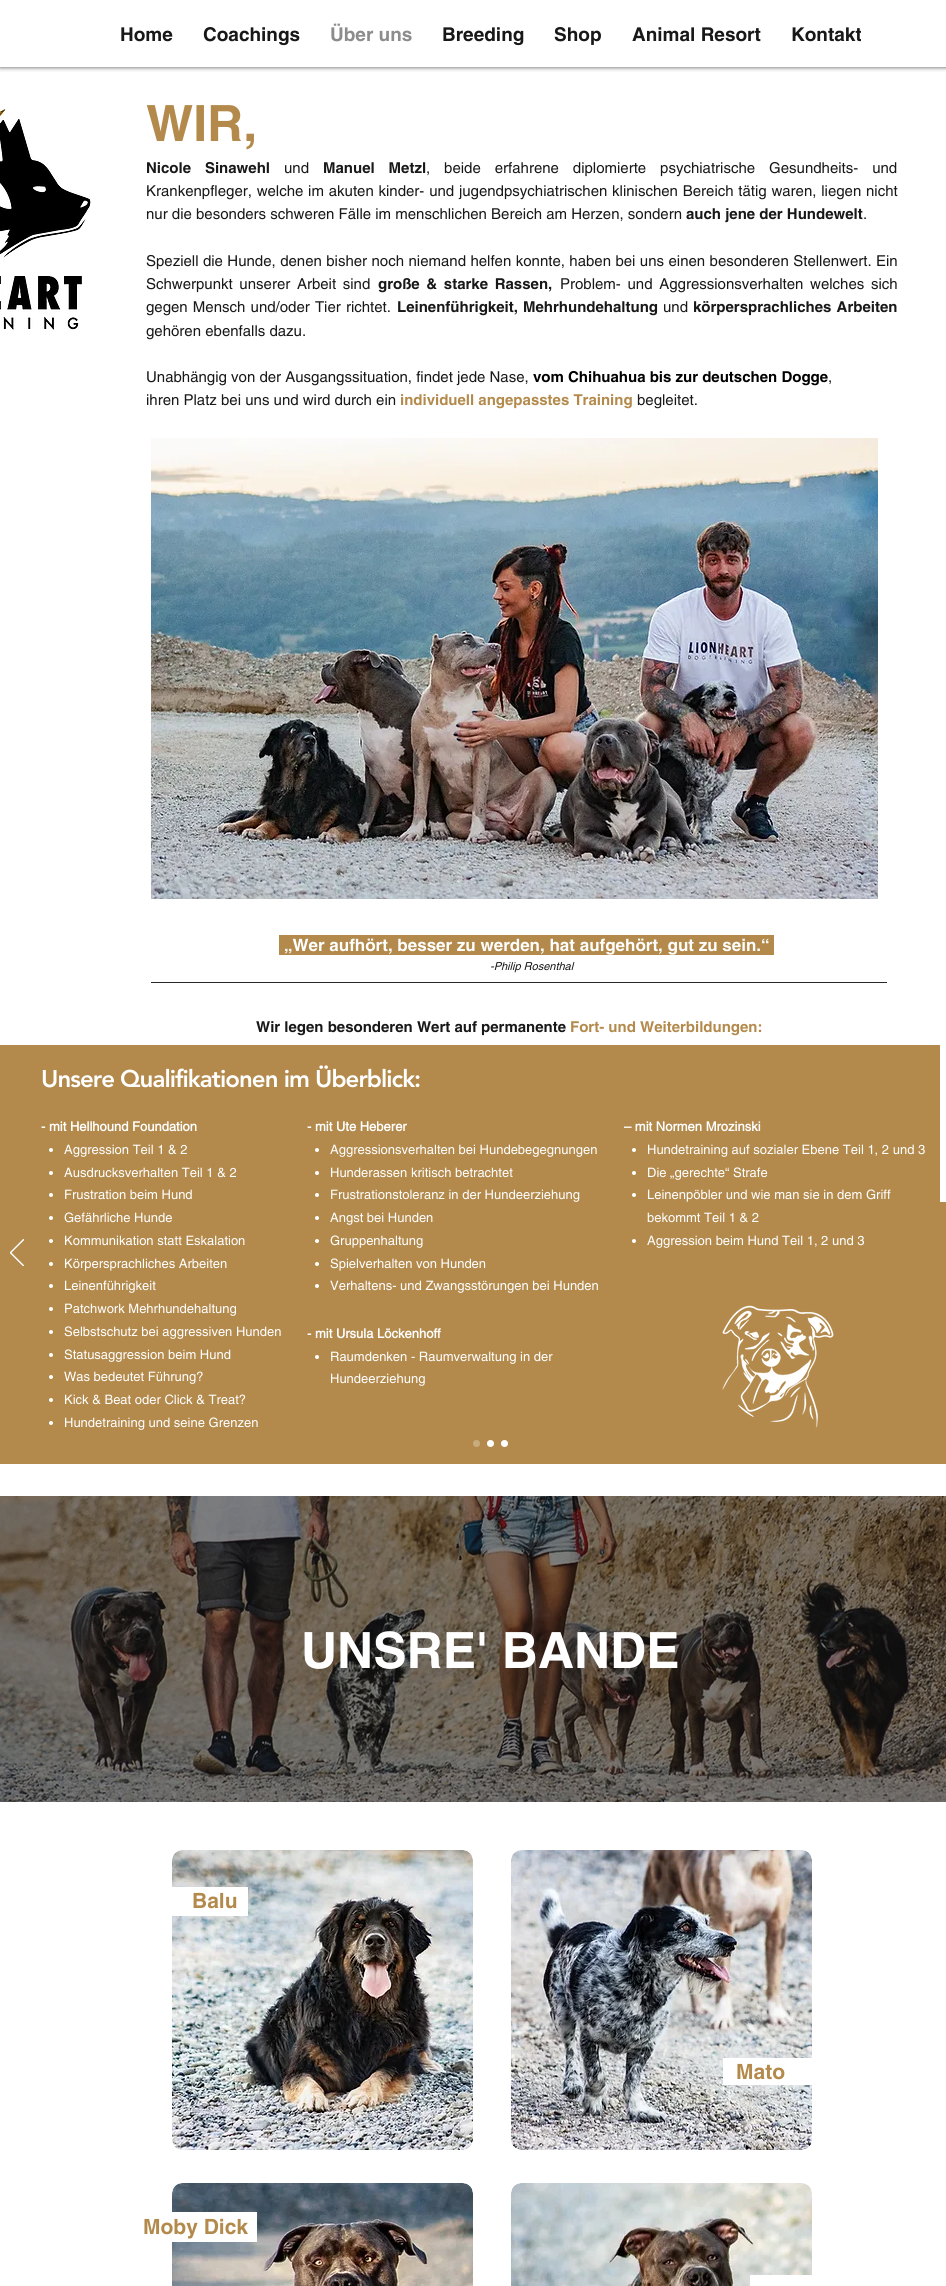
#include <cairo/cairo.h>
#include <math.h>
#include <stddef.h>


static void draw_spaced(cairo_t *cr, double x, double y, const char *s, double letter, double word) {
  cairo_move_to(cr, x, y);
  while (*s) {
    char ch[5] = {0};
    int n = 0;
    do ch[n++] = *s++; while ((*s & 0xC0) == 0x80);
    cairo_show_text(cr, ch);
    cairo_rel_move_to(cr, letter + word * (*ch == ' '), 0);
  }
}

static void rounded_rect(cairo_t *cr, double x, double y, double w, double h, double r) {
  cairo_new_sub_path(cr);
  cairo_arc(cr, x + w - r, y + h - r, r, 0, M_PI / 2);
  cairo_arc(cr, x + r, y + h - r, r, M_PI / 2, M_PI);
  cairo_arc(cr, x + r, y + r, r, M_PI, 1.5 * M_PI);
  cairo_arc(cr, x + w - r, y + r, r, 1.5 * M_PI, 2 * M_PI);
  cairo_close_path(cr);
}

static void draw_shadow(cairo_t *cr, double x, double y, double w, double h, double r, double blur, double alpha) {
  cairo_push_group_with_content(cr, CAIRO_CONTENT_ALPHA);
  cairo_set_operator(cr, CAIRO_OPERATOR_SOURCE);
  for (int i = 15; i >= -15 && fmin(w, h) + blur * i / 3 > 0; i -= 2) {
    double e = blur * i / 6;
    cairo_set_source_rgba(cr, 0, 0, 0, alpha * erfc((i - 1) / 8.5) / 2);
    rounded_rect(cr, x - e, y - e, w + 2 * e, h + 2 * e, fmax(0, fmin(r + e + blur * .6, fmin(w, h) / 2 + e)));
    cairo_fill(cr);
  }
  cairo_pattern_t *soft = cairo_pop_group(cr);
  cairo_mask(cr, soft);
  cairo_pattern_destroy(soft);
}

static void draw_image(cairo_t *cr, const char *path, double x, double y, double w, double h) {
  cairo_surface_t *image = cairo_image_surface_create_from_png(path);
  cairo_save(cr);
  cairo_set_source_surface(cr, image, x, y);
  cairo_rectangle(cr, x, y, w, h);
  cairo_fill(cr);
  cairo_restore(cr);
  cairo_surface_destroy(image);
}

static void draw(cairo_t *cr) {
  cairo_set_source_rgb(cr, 1, 1, 1);
  cairo_paint(cr);
  cairo_save(cr);
  cairo_rectangle(cr, 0, 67, 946, 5);
  cairo_clip(cr);
  cairo_set_source_rgb(cr, 0, 0, 0);
  draw_shadow(cr, 0, 0, 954, 67, 0, 2.5, 0.7);
  cairo_restore(cr);
  draw_image(cr, "images/1.png", 151, 438, 727, 461);
  cairo_set_source_rgb(cr, 179 / 255.0, 138 / 255.0, 76 / 255.0);
  cairo_rectangle(cr, 279, 935, 495, 20);
  cairo_fill(cr);
  cairo_set_source_rgb(cr, 40 / 255.0, 38 / 255.0, 38 / 255.0);
  cairo_rectangle(cr, 151, 982, 736, 1);
  cairo_fill(cr);
  cairo_set_source_rgb(cr, 179 / 255.0, 138 / 255.0, 76 / 255.0);
  cairo_rectangle(cr, 0, 1045, 946, 419);
  cairo_fill(cr);
  draw_image(cr, "images/2.png", 10, 1239, 14, 27);
  cairo_set_source_rgb(cr, 1, 1, 1);
  cairo_rectangle(cr, 940, 1044, 6, 158);
  cairo_fill(cr);
  cairo_arc(cr, 51, 1150, 2, 0, 2 * M_PI);
  cairo_fill(cr);
  cairo_arc(cr, 51, 1173, 2, 0, 2 * M_PI);
  cairo_fill(cr);
  cairo_arc(cr, 51, 1195, 2, 0, 2 * M_PI);
  cairo_fill(cr);
  cairo_arc(cr, 51, 1218, 2, 0, 2 * M_PI);
  cairo_fill(cr);
  cairo_arc(cr, 51, 1241, 2, 0, 2 * M_PI);
  cairo_fill(cr);
  cairo_arc(cr, 51, 1264, 2, 0, 2 * M_PI);
  cairo_fill(cr);
  cairo_arc(cr, 51, 1286, 2, 0, 2 * M_PI);
  cairo_fill(cr);
  cairo_arc(cr, 51, 1309, 2, 0, 2 * M_PI);
  cairo_fill(cr);
  cairo_arc(cr, 51, 1332, 2, 0, 2 * M_PI);
  cairo_fill(cr);
  cairo_arc(cr, 51, 1355, 2, 0, 2 * M_PI);
  cairo_fill(cr);
  cairo_arc(cr, 51, 1377, 2, 0, 2 * M_PI);
  cairo_fill(cr);
  cairo_arc(cr, 51, 1400, 2, 0, 2 * M_PI);
  cairo_fill(cr);
  cairo_arc(cr, 51, 1423, 2, 0, 2 * M_PI);
  cairo_fill(cr);
  cairo_arc(cr, 317, 1150, 2, 0, 2 * M_PI);
  cairo_fill(cr);
  cairo_arc(cr, 317, 1173, 2, 0, 2 * M_PI);
  cairo_fill(cr);
  cairo_arc(cr, 317, 1195, 2, 0, 2 * M_PI);
  cairo_fill(cr);
  cairo_arc(cr, 317, 1218, 2, 0, 2 * M_PI);
  cairo_fill(cr);
  cairo_arc(cr, 317, 1241, 2, 0, 2 * M_PI);
  cairo_fill(cr);
  cairo_arc(cr, 317, 1264, 2, 0, 2 * M_PI);
  cairo_fill(cr);
  cairo_arc(cr, 317, 1286, 2, 0, 2 * M_PI);
  cairo_fill(cr);
  cairo_arc(cr, 317, 1357, 2, 0, 2 * M_PI);
  cairo_fill(cr);
  cairo_arc(cr, 634, 1150, 2, 0, 2 * M_PI);
  cairo_fill(cr);
  cairo_arc(cr, 634, 1173, 2, 0, 2 * M_PI);
  cairo_fill(cr);
  cairo_arc(cr, 634, 1195, 2, 0, 2 * M_PI);
  cairo_fill(cr);
  cairo_arc(cr, 634, 1241, 2, 0, 2 * M_PI);
  cairo_fill(cr);
  draw_image(cr, "images/3.png", 722, 1305, 112, 123);
  cairo_set_source_rgb(cr, 200 / 255.0, 171 / 255.0, 126 / 255.0);
  cairo_arc(cr, 476.5, 1443.5, 3.5, 0, 2 * M_PI);
  cairo_fill(cr);
  cairo_set_source_rgb(cr, 1, 1, 1);
  cairo_arc(cr, 490.5, 1443.5, 3.5, 0, 2 * M_PI);
  cairo_fill(cr);
  cairo_arc(cr, 504.5, 1443.5, 3.5, 0, 2 * M_PI);
  cairo_fill(cr);
  cairo_set_source_rgb(cr, 24 / 255.0, 24 / 255.0, 24 / 255.0);
  cairo_rectangle(cr, 0, 1496, 946, 306);
  cairo_fill(cr);
  draw_image(cr, "images/4.png", 0, 1496, 946, 306);
  draw_image(cr, "images/5.png", 172, 1850, 301, 300);
  draw_image(cr, "images/6.png", 511, 1850, 301, 300);
  cairo_set_source_rgb(cr, 1, 1, 1);
  cairo_rectangle(cr, 172, 1887, 76, 29);
  cairo_fill(cr);
  cairo_rectangle(cr, 723, 2058, 89, 27);
  cairo_fill(cr);
  draw_image(cr, "images/7.png", 172, 2183, 301, 103);
  draw_image(cr, "images/8.png", 511, 2183, 301, 103);
  cairo_rectangle(cr, 172, 2212, 85, 30);
  cairo_fill(cr);
  cairo_rectangle(cr, 750, 2275, 62, 11);
  cairo_fill(cr);
  draw_image(cr, "images/9.png", 0, 109, 91, 221);
  cairo_select_font_face(cr, "helvetica", CAIRO_FONT_SLANT_NORMAL, CAIRO_FONT_WEIGHT_BOLD);
  cairo_set_font_size(cr, 19);
  cairo_set_source_rgb(cr, 24 / 255.0, 24 / 255.0, 24 / 255.0);
  cairo_move_to(cr, 120, 41);
  cairo_show_text(cr, "Home");
  cairo_move_to(cr, 203, 41);
  cairo_show_text(cr, "Coachings");
  cairo_set_source_rgb(cr, 140 / 255.0, 140 / 255.0, 140 / 255.0);
  cairo_move_to(cr, 330, 41);
  cairo_show_text(cr, "Über uns");
  cairo_set_source_rgb(cr, 24 / 255.0, 24 / 255.0, 24 / 255.0);
  cairo_move_to(cr, 442, 41);
  cairo_show_text(cr, "Breeding");
  cairo_move_to(cr, 554, 41);
  cairo_show_text(cr, "Shop");
  cairo_move_to(cr, 632, 41);
  cairo_show_text(cr, "Animal Resort");
  cairo_move_to(cr, 791, 41);
  cairo_show_text(cr, "Kontakt");
  cairo_set_font_size(cr, 50);
  cairo_set_source_rgb(cr, 179 / 255.0, 138 / 255.0, 76 / 255.0);
  cairo_move_to(cr, 146, 141);
  cairo_show_text(cr, "WIR,");
  cairo_set_font_size(cr, 15);
  cairo_set_source_rgb(cr, 24 / 255.0, 24 / 255.0, 24 / 255.0);
  draw_spaced(cr, 146, 173, "Nicole Sinawehl", 0, 9.75);
  cairo_select_font_face(cr, "helvetica", CAIRO_FONT_SLANT_NORMAL, CAIRO_FONT_WEIGHT_NORMAL);
  cairo_move_to(cr, 284, 173);
  cairo_show_text(cr, "und");
  cairo_select_font_face(cr, "helvetica", CAIRO_FONT_SLANT_NORMAL, CAIRO_FONT_WEIGHT_BOLD);
  draw_spaced(cr, 323, 173, "Manuel Metzl", 0, 9.75);
  cairo_select_font_face(cr, "helvetica", CAIRO_FONT_SLANT_NORMAL, CAIRO_FONT_WEIGHT_NORMAL);
  draw_spaced(cr, 426, 173, ", beide erfahrene diplomierte psychiatrische Gesundheits- und", 0, 9.75);
  draw_spaced(cr, 146, 196, "Krankenpfleger, welche im akuten kinder- und jugendpsychiatrischen klinischen Bereich tätig waren, liegen nicht", 0, 0.6);
  cairo_move_to(cr, 146, 219);
  cairo_show_text(cr, "nur die besonders schweren Fälle im menschlichen Bereich am Herzen, sondern");
  cairo_select_font_face(cr, "helvetica", CAIRO_FONT_SLANT_NORMAL, CAIRO_FONT_WEIGHT_BOLD);
  cairo_move_to(cr, 686, 219);
  cairo_show_text(cr, "auch jene der Hundewelt");
  cairo_select_font_face(cr, "helvetica", CAIRO_FONT_SLANT_NORMAL, CAIRO_FONT_WEIGHT_NORMAL);
  cairo_move_to(cr, 863, 219);
  cairo_show_text(cr, ".");
  draw_spaced(cr, 146, 266, "Speziell die Hunde, denen bisher noch niemand helfen konnte, haben bei uns einen besonderen Stellenwert.", 0, 0.25);
  cairo_move_to(cr, 876, 266);
  cairo_show_text(cr, "Ein");
  draw_spaced(cr, 146, 289, "Schwerpunkt unserer Arbeit sind", 0, 2.5);
  cairo_select_font_face(cr, "helvetica", CAIRO_FONT_SLANT_NORMAL, CAIRO_FONT_WEIGHT_BOLD);
  draw_spaced(cr, 378, 289, "große & starke Rassen,", 0, 2.5);
  cairo_select_font_face(cr, "helvetica", CAIRO_FONT_SLANT_NORMAL, CAIRO_FONT_WEIGHT_NORMAL);
  draw_spaced(cr, 560, 289, "Problem- und Aggressionsverhalten welches sich", 0, 2.5);
  draw_spaced(cr, 146, 312, "gegen Mensch und/oder Tier richtet.", 0, 1);
  cairo_select_font_face(cr, "helvetica", CAIRO_FONT_SLANT_NORMAL, CAIRO_FONT_WEIGHT_BOLD);
  draw_spaced(cr, 397, 312, "Leinenführigkeit, Mehrhundehaltung", 0, 1);
  cairo_select_font_face(cr, "helvetica", CAIRO_FONT_SLANT_NORMAL, CAIRO_FONT_WEIGHT_NORMAL);
  cairo_move_to(cr, 663, 312);
  cairo_show_text(cr, "und");
  cairo_select_font_face(cr, "helvetica", CAIRO_FONT_SLANT_NORMAL, CAIRO_FONT_WEIGHT_BOLD);
  draw_spaced(cr, 693, 312, "körpersprachliches Arbeiten", 0, 1);
  cairo_select_font_face(cr, "helvetica", CAIRO_FONT_SLANT_NORMAL, CAIRO_FONT_WEIGHT_NORMAL);
  cairo_move_to(cr, 146, 336);
  cairo_show_text(cr, "gehören ebenfalls dazu.");
  cairo_move_to(cr, 146, 382);
  cairo_show_text(cr, "Unabhängig von der Ausgangssituation, findet jede Nase,");
  cairo_select_font_face(cr, "helvetica", CAIRO_FONT_SLANT_NORMAL, CAIRO_FONT_WEIGHT_BOLD);
  cairo_set_source_rgb(cr, 0, 0, 0);
  cairo_move_to(cr, 533, 382);
  cairo_show_text(cr, "vom Chihuahua bis zur deutschen Dogge");
  cairo_select_font_face(cr, "helvetica", CAIRO_FONT_SLANT_NORMAL, CAIRO_FONT_WEIGHT_NORMAL);
  cairo_set_source_rgb(cr, 24 / 255.0, 24 / 255.0, 24 / 255.0);
  cairo_move_to(cr, 828, 382);
  cairo_show_text(cr, ",");
  cairo_move_to(cr, 146, 405);
  cairo_show_text(cr, "ihren Platz bei uns und wird durch ein");
  cairo_select_font_face(cr, "helvetica", CAIRO_FONT_SLANT_NORMAL, CAIRO_FONT_WEIGHT_BOLD);
  cairo_set_source_rgb(cr, 179 / 255.0, 138 / 255.0, 76 / 255.0);
  cairo_move_to(cr, 400, 405);
  cairo_show_text(cr, "individuell angepasstes Training");
  cairo_select_font_face(cr, "helvetica", CAIRO_FONT_SLANT_NORMAL, CAIRO_FONT_WEIGHT_NORMAL);
  cairo_set_source_rgb(cr, 24 / 255.0, 24 / 255.0, 24 / 255.0);
  cairo_move_to(cr, 637, 405);
  cairo_show_text(cr, "begleitet.");
  cairo_select_font_face(cr, "helvetica", CAIRO_FONT_SLANT_NORMAL, CAIRO_FONT_WEIGHT_BOLD);
  cairo_set_font_size(cr, 17);
  cairo_set_source_rgb(cr, 1, 1, 1);
  cairo_move_to(cr, 284, 951);
  cairo_show_text(cr, "„Wer aufhört, besser zu werden, hat aufgehört, gut zu sein.“");
  cairo_select_font_face(cr, "helvetica", CAIRO_FONT_SLANT_ITALIC, CAIRO_FONT_WEIGHT_NORMAL);
  cairo_set_font_size(cr, 11);
  cairo_set_source_rgb(cr, 24 / 255.0, 24 / 255.0, 24 / 255.0);
  cairo_move_to(cr, 490, 970);
  cairo_show_text(cr, "-Philip Rosenthal");
  cairo_select_font_face(cr, "helvetica", CAIRO_FONT_SLANT_NORMAL, CAIRO_FONT_WEIGHT_BOLD);
  cairo_set_font_size(cr, 15);
  cairo_move_to(cr, 256, 1032);
  cairo_show_text(cr, "Wir legen besonderen Wert auf permanente");
  cairo_set_source_rgb(cr, 179 / 255.0, 138 / 255.0, 76 / 255.0);
  cairo_move_to(cr, 570, 1032);
  cairo_show_text(cr, "Fort- und Weiterbildungen:");
  cairo_select_font_face(cr, "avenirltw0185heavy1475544 Black", CAIRO_FONT_SLANT_NORMAL, CAIRO_FONT_WEIGHT_NORMAL);
  cairo_set_font_size(cr, 24);
  cairo_set_source_rgb(cr, 1, 1, 1);
  draw_spaced(cr, 41, 1087, "Unsere Qualifikationen im Überblick:", -0.95, 0);
  cairo_select_font_face(cr, "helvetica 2", CAIRO_FONT_SLANT_NORMAL, CAIRO_FONT_WEIGHT_BOLD);
  cairo_set_font_size(cr, 13);
  cairo_move_to(cr, 41, 1131);
  cairo_show_text(cr, "- mit Hellhound Foundation");
  cairo_select_font_face(cr, "helvetica", CAIRO_FONT_SLANT_NORMAL, CAIRO_FONT_WEIGHT_NORMAL);
  cairo_move_to(cr, 64, 1154);
  cairo_show_text(cr, "Aggression Teil 1 & 2");
  cairo_move_to(cr, 64, 1177);
  cairo_show_text(cr, "Ausdrucksverhalten Teil 1 & 2");
  cairo_move_to(cr, 64, 1199);
  cairo_show_text(cr, "Frustration beim Hund");
  cairo_move_to(cr, 64, 1222);
  cairo_show_text(cr, "Gefährliche Hunde");
  cairo_move_to(cr, 64, 1245);
  cairo_show_text(cr, "Kommunikation statt Eskalation");
  cairo_move_to(cr, 64, 1268);
  cairo_show_text(cr, "Körpersprachliches Arbeiten");
  cairo_move_to(cr, 64, 1290);
  cairo_show_text(cr, "Leinenführigkeit");
  cairo_move_to(cr, 64, 1313);
  cairo_show_text(cr, "Patchwork Mehrhundehaltung");
  cairo_move_to(cr, 64, 1336);
  cairo_show_text(cr, "Selbstschutz bei aggressiven Hunden");
  cairo_move_to(cr, 64, 1359);
  cairo_show_text(cr, "Statusaggression beim Hund");
  cairo_move_to(cr, 64, 1381);
  cairo_show_text(cr, "Was bedeutet Führung?");
  cairo_move_to(cr, 64, 1404);
  cairo_show_text(cr, "Kick & Beat oder Click & Treat?");
  cairo_move_to(cr, 64, 1427);
  cairo_show_text(cr, "Hundetraining und seine Grenzen");
  cairo_select_font_face(cr, "helvetica 2", CAIRO_FONT_SLANT_NORMAL, CAIRO_FONT_WEIGHT_BOLD);
  cairo_move_to(cr, 307, 1131);
  cairo_show_text(cr, "- mit Ute Heberer");
  cairo_select_font_face(cr, "helvetica", CAIRO_FONT_SLANT_NORMAL, CAIRO_FONT_WEIGHT_NORMAL);
  cairo_move_to(cr, 330, 1154);
  cairo_show_text(cr, "Aggressionsverhalten bei Hundebegegnungen");
  cairo_move_to(cr, 330, 1177);
  cairo_show_text(cr, "Hunderassen kritisch betrachtet");
  cairo_move_to(cr, 330, 1199);
  cairo_show_text(cr, "Frustrationstoleranz in der Hundeerziehung");
  cairo_move_to(cr, 330, 1222);
  cairo_show_text(cr, "Angst bei Hunden");
  cairo_move_to(cr, 330, 1245);
  cairo_show_text(cr, "Gruppenhaltung");
  cairo_move_to(cr, 330, 1268);
  cairo_show_text(cr, "Spielverhalten von Hunden");
  cairo_move_to(cr, 330, 1290);
  cairo_show_text(cr, "Verhaltens- und Zwangsstörungen bei Hunden");
  cairo_select_font_face(cr, "helvetica 2", CAIRO_FONT_SLANT_NORMAL, CAIRO_FONT_WEIGHT_BOLD);
  cairo_move_to(cr, 307, 1338);
  cairo_show_text(cr, "- mit Ursula Löckenhoff");
  cairo_select_font_face(cr, "helvetica", CAIRO_FONT_SLANT_NORMAL, CAIRO_FONT_WEIGHT_NORMAL);
  cairo_move_to(cr, 330, 1361);
  cairo_show_text(cr, "Raumdenken - Raumverwaltung in der");
  cairo_move_to(cr, 330, 1383);
  cairo_show_text(cr, "Hundeerziehung");
  cairo_select_font_face(cr, "helvetica 2", CAIRO_FONT_SLANT_NORMAL, CAIRO_FONT_WEIGHT_BOLD);
  cairo_move_to(cr, 624, 1131);
  cairo_show_text(cr, "– mit Normen Mrozinski");
  cairo_select_font_face(cr, "helvetica", CAIRO_FONT_SLANT_NORMAL, CAIRO_FONT_WEIGHT_NORMAL);
  cairo_move_to(cr, 647, 1154);
  cairo_show_text(cr, "Hundetraining auf sozialer Ebene Teil 1, 2 und 3");
  cairo_move_to(cr, 647, 1177);
  cairo_show_text(cr, "Die „gerechte“ Strafe");
  cairo_move_to(cr, 647, 1199);
  cairo_show_text(cr, "Leinenpöbler und wie man sie in dem Griff");
  cairo_move_to(cr, 647, 1222);
  cairo_show_text(cr, "bekommt Teil 1 & 2");
  cairo_move_to(cr, 647, 1245);
  cairo_show_text(cr, "Aggression beim Hund Teil 1, 2 und 3");
  cairo_select_font_face(cr, "helvetica", CAIRO_FONT_SLANT_NORMAL, CAIRO_FONT_WEIGHT_BOLD);
  cairo_set_font_size(cr, 50);
  cairo_move_to(cr, 301, 1668);
  cairo_show_text(cr, "UNSRE' BANDE");
  cairo_set_font_size(cr, 21);
  cairo_set_source_rgb(cr, 179 / 255.0, 138 / 255.0, 76 / 255.0);
  cairo_move_to(cr, 192, 1908);
  cairo_show_text(cr, "Balu");
  cairo_move_to(cr, 736, 2079);
  cairo_show_text(cr, "Mato");
  cairo_move_to(cr, 143, 2234);
  cairo_show_text(cr, "Moby Dick");
}

int main(void) {
  cairo_surface_t *surface = cairo_image_surface_create(CAIRO_FORMAT_RGB24, 946, 2286);
  cairo_t *cr = cairo_create(surface);
  cairo_font_options_t *options = cairo_font_options_create();
  cairo_font_options_set_hint_metrics(options, CAIRO_HINT_METRICS_OFF);
  cairo_font_options_set_hint_style(options, CAIRO_HINT_STYLE_NONE);
  cairo_set_font_options(cr, options);
  cairo_set_miter_limit(cr, 4);
  draw(cr);
  cairo_surface_write_to_png(surface, "out.png");
  cairo_font_options_destroy(options);
  cairo_destroy(cr);
  cairo_surface_destroy(surface);
  return 0;
}
